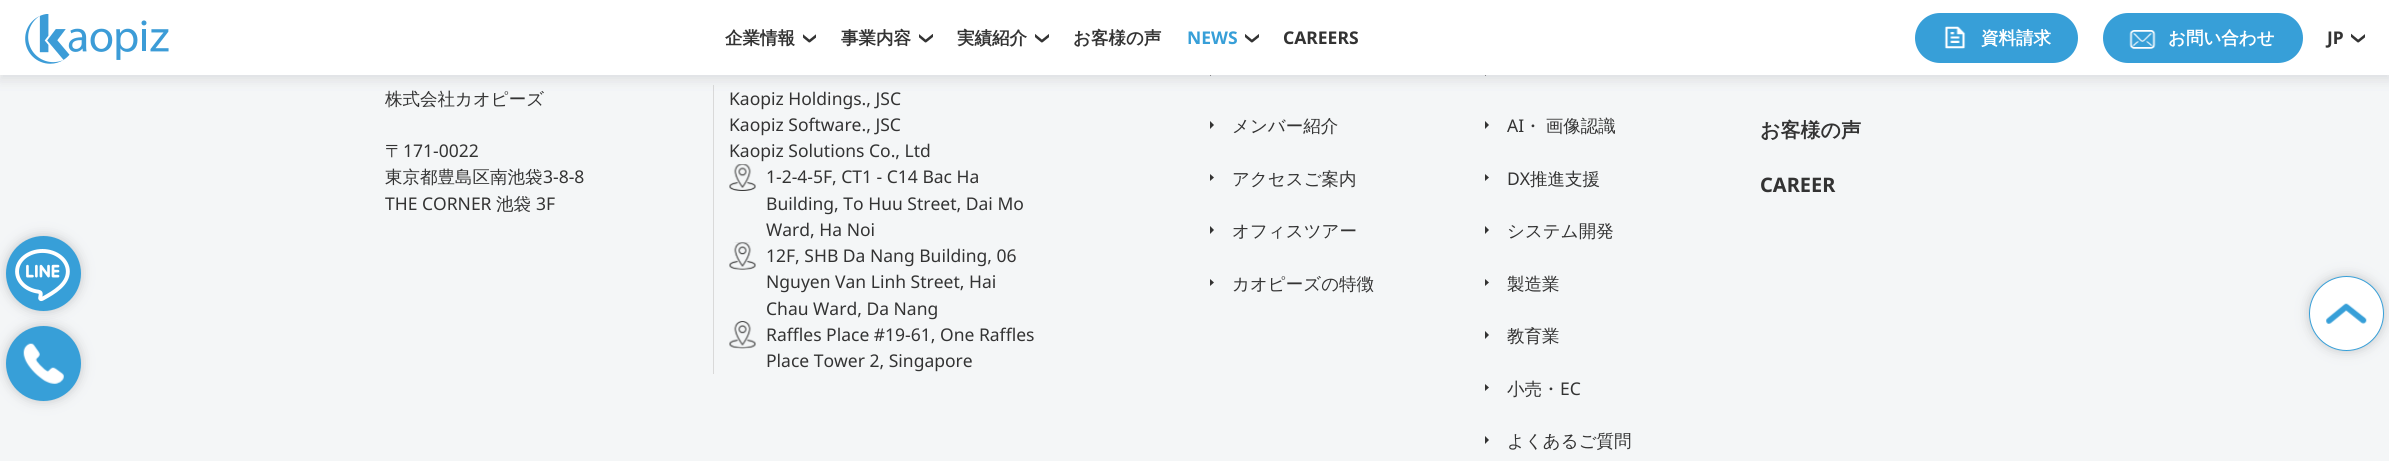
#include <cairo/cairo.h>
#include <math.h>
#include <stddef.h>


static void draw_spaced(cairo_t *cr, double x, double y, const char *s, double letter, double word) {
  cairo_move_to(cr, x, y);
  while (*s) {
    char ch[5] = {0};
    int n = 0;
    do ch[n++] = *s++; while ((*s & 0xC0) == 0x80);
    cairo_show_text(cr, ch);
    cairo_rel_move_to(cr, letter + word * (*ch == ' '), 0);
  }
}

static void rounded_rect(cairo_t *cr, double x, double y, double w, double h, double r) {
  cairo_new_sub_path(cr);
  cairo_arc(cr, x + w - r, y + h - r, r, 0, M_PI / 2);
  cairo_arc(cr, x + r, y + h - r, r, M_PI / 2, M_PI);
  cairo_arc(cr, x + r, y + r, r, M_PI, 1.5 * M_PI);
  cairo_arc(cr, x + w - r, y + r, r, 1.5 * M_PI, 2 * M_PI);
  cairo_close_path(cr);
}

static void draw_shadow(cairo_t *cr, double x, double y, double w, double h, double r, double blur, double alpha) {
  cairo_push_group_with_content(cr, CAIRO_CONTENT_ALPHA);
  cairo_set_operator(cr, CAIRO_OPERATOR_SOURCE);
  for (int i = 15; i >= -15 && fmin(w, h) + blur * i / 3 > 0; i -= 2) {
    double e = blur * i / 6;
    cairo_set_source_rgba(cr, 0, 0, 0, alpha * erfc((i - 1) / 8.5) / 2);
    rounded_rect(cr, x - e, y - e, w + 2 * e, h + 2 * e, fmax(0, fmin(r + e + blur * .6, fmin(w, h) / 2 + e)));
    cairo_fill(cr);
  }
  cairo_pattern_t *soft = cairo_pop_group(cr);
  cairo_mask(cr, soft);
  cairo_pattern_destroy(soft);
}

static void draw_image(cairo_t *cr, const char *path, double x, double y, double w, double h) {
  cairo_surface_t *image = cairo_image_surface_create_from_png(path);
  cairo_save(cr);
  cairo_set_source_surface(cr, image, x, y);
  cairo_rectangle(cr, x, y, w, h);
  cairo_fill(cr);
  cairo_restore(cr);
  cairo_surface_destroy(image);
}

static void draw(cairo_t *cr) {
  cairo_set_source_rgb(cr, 244 / 255.0, 246 / 255.0, 247 / 255.0);
  cairo_paint(cr);
  cairo_set_source_rgb(cr, 217 / 255.0, 217 / 255.0, 217 / 255.0);
  cairo_rectangle(cr, 713, 85, 1, 289);
  cairo_fill(cr);
  cairo_set_source_rgb(cr, 51 / 255.0, 51 / 255.0, 51 / 255.0);
  cairo_new_path(cr);
  cairo_move_to(cr, 1210, 76);
  cairo_line_to(cr, 1210, 69);
  cairo_line_to(cr, 1214, 72.5);
  cairo_close_path(cr);
  cairo_move_to(cr, 1210, 129);
  cairo_line_to(cr, 1210, 121);
  cairo_line_to(cr, 1214, 125);
  cairo_close_path(cr);
  cairo_fill(cr);
  cairo_new_path(cr);
  cairo_move_to(cr, 1485, 76);
  cairo_line_to(cr, 1485, 69);
  cairo_line_to(cr, 1489, 72.5);
  cairo_close_path(cr);
  cairo_move_to(cr, 1485, 129);
  cairo_line_to(cr, 1485, 121);
  cairo_line_to(cr, 1489, 125);
  cairo_close_path(cr);
  cairo_fill(cr);
  cairo_set_source_rgb(cr, 122 / 255.0, 127 / 255.0, 130 / 255.0);
  draw_shadow(cr, 0, 5, 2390, 75, 0, 6, 0.1);
  draw_shadow(cr, 0, 5, 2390, 75, 0, 6, 0.1);
  cairo_set_source_rgb(cr, 1, 1, 1);
  cairo_rectangle(cr, 0, 0, 2389, 75);
  cairo_fill(cr);
  draw_image(cr, "images/1.png", 25, 14, 144, 50);
  draw_image(cr, "images/2.png", 803, 34, 13, 9);
  draw_image(cr, "images/3.png", 919, 34, 14, 9);
  draw_image(cr, "images/4.png", 1035, 34, 14, 9);
  draw_image(cr, "images/4.png", 1245, 34, 14, 9);
  cairo_set_source_rgb(cr, 55 / 255.0, 159 / 255.0, 216 / 255.0);
  rounded_rect(cr, 1916.5, 14.5, 160, 47, 23.5);
  cairo_fill_preserve(cr);
  cairo_set_line_width(cr, 3);
  cairo_stroke(cr);
  draw_image(cr, "images/5.png", 1944, 26, 22, 23);
  rounded_rect(cr, 2104.5, 14.5, 197, 47, 23.5);
  cairo_fill_preserve(cr);
  cairo_stroke(cr);
  draw_image(cr, "images/6.png", 2129, 30, 27, 19);
  draw_image(cr, "images/7.png", 2351, 33, 14, 10);
  draw_image(cr, "images/8.png", 729, 164, 27, 27);
  draw_image(cr, "images/9.png", 729, 242, 27, 28);
  draw_image(cr, "images/10.png", 729, 321, 27, 28);
  cairo_set_source_rgb(cr, 51 / 255.0, 51 / 255.0, 51 / 255.0);
  cairo_new_path(cr);
  cairo_move_to(cr, 1210, 181);
  cairo_line_to(cr, 1210, 174);
  cairo_line_to(cr, 1214, 177.5);
  cairo_close_path(cr);
  cairo_fill(cr);
  cairo_new_path(cr);
  cairo_move_to(cr, 1210, 234);
  cairo_line_to(cr, 1210, 226);
  cairo_line_to(cr, 1214, 230);
  cairo_close_path(cr);
  cairo_fill(cr);
  cairo_new_path(cr);
  cairo_move_to(cr, 1210, 286);
  cairo_line_to(cr, 1210, 279);
  cairo_line_to(cr, 1214, 282.5);
  cairo_close_path(cr);
  cairo_fill(cr);
  cairo_new_path(cr);
  cairo_move_to(cr, 1485, 181);
  cairo_line_to(cr, 1485, 174);
  cairo_line_to(cr, 1489, 177.5);
  cairo_close_path(cr);
  cairo_fill(cr);
  cairo_new_path(cr);
  cairo_move_to(cr, 1485, 234);
  cairo_line_to(cr, 1485, 226);
  cairo_line_to(cr, 1489, 230);
  cairo_close_path(cr);
  cairo_fill(cr);
  cairo_new_path(cr);
  cairo_move_to(cr, 1485, 286);
  cairo_line_to(cr, 1485, 279);
  cairo_line_to(cr, 1489, 282.5);
  cairo_close_path(cr);
  cairo_fill(cr);
  cairo_new_path(cr);
  cairo_move_to(cr, 1485, 339);
  cairo_line_to(cr, 1485, 331);
  cairo_line_to(cr, 1489, 335);
  cairo_close_path(cr);
  cairo_fill(cr);
  cairo_new_path(cr);
  cairo_move_to(cr, 1485, 391);
  cairo_line_to(cr, 1485, 384);
  cairo_line_to(cr, 1489, 387.5);
  cairo_close_path(cr);
  cairo_fill(cr);
  cairo_new_path(cr);
  cairo_move_to(cr, 1485, 444);
  cairo_line_to(cr, 1485, 436);
  cairo_line_to(cr, 1489, 440);
  cairo_close_path(cr);
  cairo_fill(cr);
  cairo_set_source_rgb(cr, 122 / 255.0, 127 / 255.0, 130 / 255.0);
  draw_shadow(cr, 6, 236, 75, 75, 37.5, 6, 0.4);
  cairo_set_source_rgb(cr, 55 / 255.0, 159 / 255.0, 216 / 255.0);
  cairo_arc(cr, 43.5, 273.5, 37.5, 0, 2 * M_PI);
  cairo_fill(cr);
  draw_image(cr, "images/11.png", 15, 249, 55, 53);
  cairo_set_source_rgb(cr, 122 / 255.0, 127 / 255.0, 130 / 255.0);
  draw_shadow(cr, 2309, 276, 75, 75, 37.5, 6, 0.4);
  cairo_set_source_rgb(cr, 1, 1, 1);
  cairo_arc(cr, 2346.5, 313.5, 37, 0, 2 * M_PI);
  cairo_fill_preserve(cr);
  cairo_set_source_rgb(cr, 55 / 255.0, 159 / 255.0, 216 / 255.0);
  cairo_set_line_width(cr, 1);
  cairo_stroke(cr);
  draw_image(cr, "images/12.png", 2326, 303, 41, 21);
  cairo_set_source_rgb(cr, 122 / 255.0, 127 / 255.0, 130 / 255.0);
  draw_shadow(cr, 6, 326, 75, 75, 37.5, 6, 0.4);
  cairo_set_source_rgb(cr, 55 / 255.0, 159 / 255.0, 216 / 255.0);
  cairo_arc(cr, 43.5, 363.5, 37.5, 0, 2 * M_PI);
  cairo_fill(cr);
  draw_image(cr, "images/13.png", 23, 343, 41, 41);
  cairo_select_font_face(cr, "WenQuanYi Zen Hei", CAIRO_FONT_SLANT_NORMAL, CAIRO_FONT_WEIGHT_BOLD);
  cairo_set_font_size(cr, 17.5);
  cairo_set_source_rgb(cr, 51 / 255.0, 51 / 255.0, 51 / 255.0);
  cairo_move_to(cr, 725, 44);
  cairo_show_text(cr, "企業情報");
  cairo_move_to(cr, 841, 44);
  cairo_show_text(cr, "事業内容");
  cairo_move_to(cr, 957, 44);
  cairo_show_text(cr, "実績紹介");
  cairo_move_to(cr, 1073, 44);
  cairo_show_text(cr, "お客様の声");
  cairo_select_font_face(cr, "Noto Sans", CAIRO_FONT_SLANT_NORMAL, CAIRO_FONT_WEIGHT_BOLD);
  cairo_set_source_rgb(cr, 55 / 255.0, 159 / 255.0, 216 / 255.0);
  cairo_move_to(cr, 1187, 44);
  cairo_show_text(cr, "NEWS");
  cairo_set_source_rgb(cr, 51 / 255.0, 51 / 255.0, 51 / 255.0);
  cairo_move_to(cr, 1283, 44);
  cairo_show_text(cr, "CAREERS");
  cairo_select_font_face(cr, "WenQuanYi Zen Hei", CAIRO_FONT_SLANT_NORMAL, CAIRO_FONT_WEIGHT_BOLD);
  cairo_set_source_rgb(cr, 1, 1, 1);
  cairo_move_to(cr, 1981, 44);
  cairo_show_text(cr, "資料請求");
  cairo_move_to(cr, 2168, 44);
  cairo_show_text(cr, "お問い合わせ");
  cairo_select_font_face(cr, "Noto Sans", CAIRO_FONT_SLANT_NORMAL, CAIRO_FONT_WEIGHT_BOLD);
  cairo_set_source_rgb(cr, 51 / 255.0, 51 / 255.0, 51 / 255.0);
  cairo_move_to(cr, 2327, 44);
  cairo_show_text(cr, "JP");
  cairo_select_font_face(cr, "WenQuanYi Zen Hei Medium", CAIRO_FONT_SLANT_NORMAL, CAIRO_FONT_WEIGHT_NORMAL);
  cairo_move_to(cr, 385, 105);
  cairo_show_text(cr, "株式会社カオピーズ");
  cairo_move_to(cr, 385, 157);
  cairo_show_text(cr, "〒");
  cairo_select_font_face(cr, "Noto Sans", CAIRO_FONT_SLANT_NORMAL, CAIRO_FONT_WEIGHT_NORMAL);
  cairo_move_to(cr, 403, 157);
  cairo_show_text(cr, "171-0022");
  cairo_select_font_face(cr, "WenQuanYi Zen Hei Medium", CAIRO_FONT_SLANT_NORMAL, CAIRO_FONT_WEIGHT_NORMAL);
  cairo_move_to(cr, 385, 183);
  cairo_show_text(cr, "東京都豊島区南池袋");
  cairo_select_font_face(cr, "Noto Sans", CAIRO_FONT_SLANT_NORMAL, CAIRO_FONT_WEIGHT_NORMAL);
  cairo_move_to(cr, 543, 183);
  cairo_show_text(cr, "3-8-8");
  cairo_move_to(cr, 385, 210);
  cairo_show_text(cr, "THE CORNER");
  cairo_select_font_face(cr, "WenQuanYi Zen Hei Medium", CAIRO_FONT_SLANT_NORMAL, CAIRO_FONT_WEIGHT_NORMAL);
  cairo_move_to(cr, 496, 210);
  cairo_show_text(cr, "池袋");
  cairo_select_font_face(cr, "Noto Sans", CAIRO_FONT_SLANT_NORMAL, CAIRO_FONT_WEIGHT_NORMAL);
  cairo_move_to(cr, 536, 210);
  cairo_show_text(cr, "3F");
  cairo_move_to(cr, 729, 105);
  cairo_show_text(cr, "Kaopiz Holdings., JSC");
  cairo_move_to(cr, 729, 131);
  cairo_show_text(cr, "Kaopiz Software., JSC");
  cairo_move_to(cr, 729, 157);
  cairo_show_text(cr, "Kaopiz Solutions Co., Ltd");
  cairo_move_to(cr, 766, 183);
  cairo_show_text(cr, "1-2-4-5F, CT1 - C14 Bac Ha");
  cairo_move_to(cr, 766, 210);
  cairo_show_text(cr, "Building, To Huu Street, Dai Mo");
  cairo_move_to(cr, 766, 236);
  cairo_show_text(cr, "Ward, Ha Noi");
  cairo_move_to(cr, 766, 262);
  cairo_show_text(cr, "12F, SHB Da Nang Building, 06");
  cairo_move_to(cr, 766, 288);
  cairo_show_text(cr, "Nguyen Van Linh Street, Hai");
  cairo_move_to(cr, 766, 315);
  cairo_show_text(cr, "Chau Ward, Da Nang");
  cairo_move_to(cr, 766, 341);
  cairo_show_text(cr, "Raffles Place #19-61, One Raffles");
  cairo_move_to(cr, 766, 367);
  cairo_show_text(cr, "Place Tower 2, Singapore");
  cairo_select_font_face(cr, "WenQuanYi Zen Hei Medium", CAIRO_FONT_SLANT_NORMAL, CAIRO_FONT_WEIGHT_NORMAL);
  cairo_move_to(cr, 1232, 132);
  cairo_show_text(cr, "メンバー紹介");
  cairo_move_to(cr, 1232, 185);
  cairo_show_text(cr, "アクセスご案内");
  cairo_move_to(cr, 1232, 237);
  cairo_show_text(cr, "オフィスツアー");
  cairo_move_to(cr, 1232, 290);
  cairo_show_text(cr, "カオピーズの特徴");
  cairo_select_font_face(cr, "Noto Sans", CAIRO_FONT_SLANT_NORMAL, CAIRO_FONT_WEIGHT_NORMAL);
  cairo_move_to(cr, 1507, 132);
  cairo_show_text(cr, "AI");
  cairo_select_font_face(cr, "WenQuanYi Zen Hei Medium", CAIRO_FONT_SLANT_NORMAL, CAIRO_FONT_WEIGHT_NORMAL);
  draw_spaced(cr, 1524, 132, "・ 画像認識", 0, -1);
  cairo_select_font_face(cr, "Noto Sans", CAIRO_FONT_SLANT_NORMAL, CAIRO_FONT_WEIGHT_NORMAL);
  cairo_move_to(cr, 1507, 185);
  cairo_show_text(cr, "DX");
  cairo_select_font_face(cr, "WenQuanYi Zen Hei Medium", CAIRO_FONT_SLANT_NORMAL, CAIRO_FONT_WEIGHT_NORMAL);
  cairo_move_to(cr, 1530, 185);
  cairo_show_text(cr, "推進支援");
  cairo_move_to(cr, 1507, 237);
  cairo_show_text(cr, "システム開発");
  cairo_move_to(cr, 1507, 290);
  cairo_show_text(cr, "製造業");
  cairo_move_to(cr, 1507, 342);
  cairo_show_text(cr, "教育業");
  cairo_move_to(cr, 1507, 395);
  cairo_show_text(cr, "小売・");
  cairo_select_font_face(cr, "Noto Sans", CAIRO_FONT_SLANT_NORMAL, CAIRO_FONT_WEIGHT_NORMAL);
  cairo_move_to(cr, 1560, 395);
  cairo_show_text(cr, "EC");
  cairo_select_font_face(cr, "WenQuanYi Zen Hei Medium", CAIRO_FONT_SLANT_NORMAL, CAIRO_FONT_WEIGHT_NORMAL);
  cairo_move_to(cr, 1507, 447);
  cairo_show_text(cr, "よくあるご質問");
  cairo_select_font_face(cr, "WenQuanYi Zen Hei", CAIRO_FONT_SLANT_NORMAL, CAIRO_FONT_WEIGHT_BOLD);
  cairo_set_font_size(cr, 20);
  cairo_move_to(cr, 1760, 137);
  cairo_show_text(cr, "お客様の声");
  cairo_select_font_face(cr, "Noto Sans", CAIRO_FONT_SLANT_NORMAL, CAIRO_FONT_WEIGHT_BOLD);
  cairo_move_to(cr, 1760, 192);
  cairo_show_text(cr, "CAREER");
}

int main(void) {
  cairo_surface_t *surface = cairo_image_surface_create(CAIRO_FORMAT_RGB24, 2389, 461);
  cairo_t *cr = cairo_create(surface);
  cairo_font_options_t *options = cairo_font_options_create();
  cairo_font_options_set_hint_metrics(options, CAIRO_HINT_METRICS_OFF);
  cairo_font_options_set_hint_style(options, CAIRO_HINT_STYLE_NONE);
  cairo_set_font_options(cr, options);
  cairo_set_miter_limit(cr, 4);
  draw(cr);
  cairo_surface_write_to_png(surface, "out.png");
  cairo_font_options_destroy(options);
  cairo_destroy(cr);
  cairo_surface_destroy(surface);
  return 0;
}
